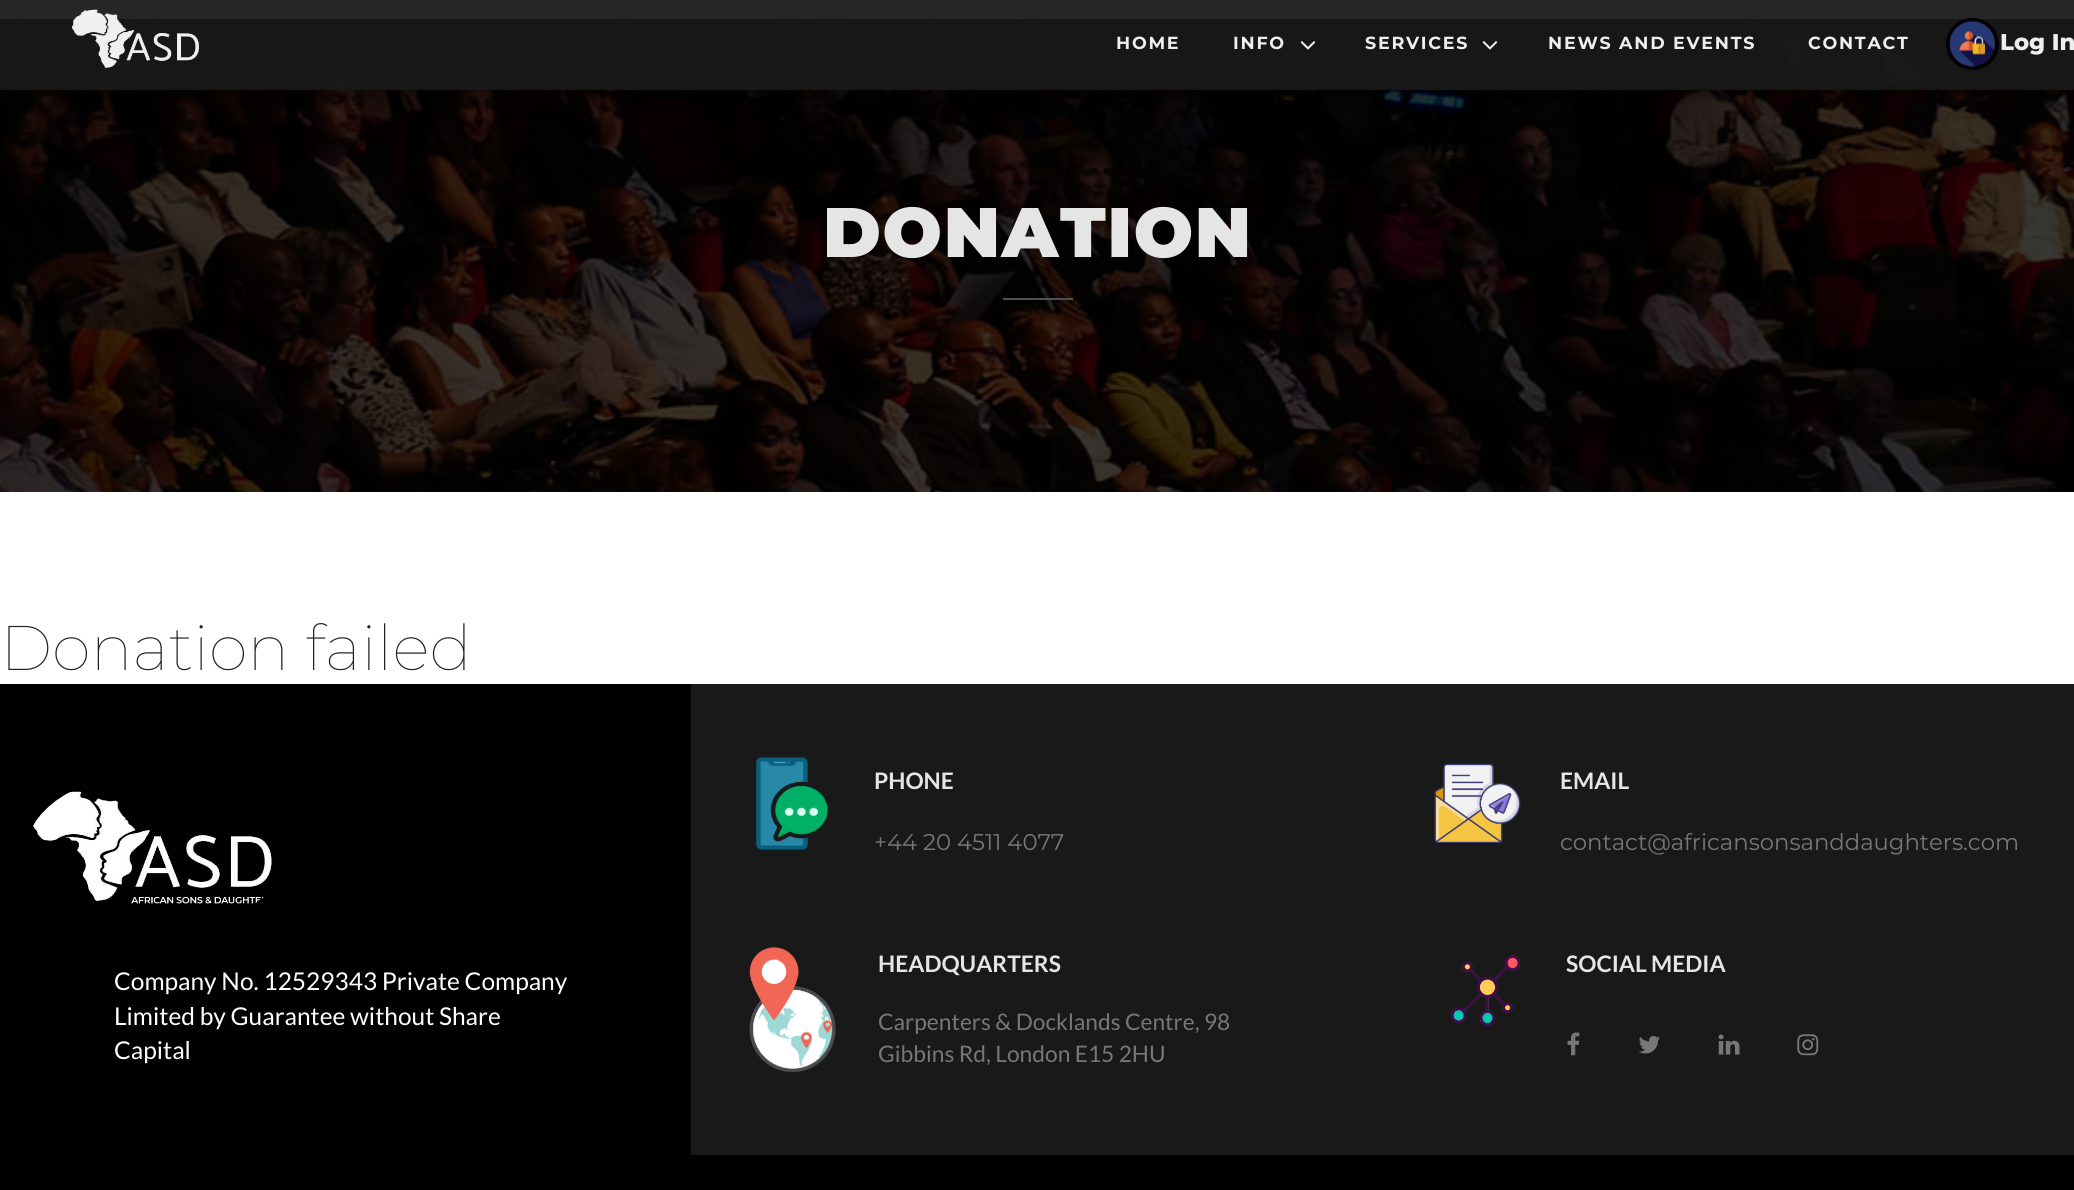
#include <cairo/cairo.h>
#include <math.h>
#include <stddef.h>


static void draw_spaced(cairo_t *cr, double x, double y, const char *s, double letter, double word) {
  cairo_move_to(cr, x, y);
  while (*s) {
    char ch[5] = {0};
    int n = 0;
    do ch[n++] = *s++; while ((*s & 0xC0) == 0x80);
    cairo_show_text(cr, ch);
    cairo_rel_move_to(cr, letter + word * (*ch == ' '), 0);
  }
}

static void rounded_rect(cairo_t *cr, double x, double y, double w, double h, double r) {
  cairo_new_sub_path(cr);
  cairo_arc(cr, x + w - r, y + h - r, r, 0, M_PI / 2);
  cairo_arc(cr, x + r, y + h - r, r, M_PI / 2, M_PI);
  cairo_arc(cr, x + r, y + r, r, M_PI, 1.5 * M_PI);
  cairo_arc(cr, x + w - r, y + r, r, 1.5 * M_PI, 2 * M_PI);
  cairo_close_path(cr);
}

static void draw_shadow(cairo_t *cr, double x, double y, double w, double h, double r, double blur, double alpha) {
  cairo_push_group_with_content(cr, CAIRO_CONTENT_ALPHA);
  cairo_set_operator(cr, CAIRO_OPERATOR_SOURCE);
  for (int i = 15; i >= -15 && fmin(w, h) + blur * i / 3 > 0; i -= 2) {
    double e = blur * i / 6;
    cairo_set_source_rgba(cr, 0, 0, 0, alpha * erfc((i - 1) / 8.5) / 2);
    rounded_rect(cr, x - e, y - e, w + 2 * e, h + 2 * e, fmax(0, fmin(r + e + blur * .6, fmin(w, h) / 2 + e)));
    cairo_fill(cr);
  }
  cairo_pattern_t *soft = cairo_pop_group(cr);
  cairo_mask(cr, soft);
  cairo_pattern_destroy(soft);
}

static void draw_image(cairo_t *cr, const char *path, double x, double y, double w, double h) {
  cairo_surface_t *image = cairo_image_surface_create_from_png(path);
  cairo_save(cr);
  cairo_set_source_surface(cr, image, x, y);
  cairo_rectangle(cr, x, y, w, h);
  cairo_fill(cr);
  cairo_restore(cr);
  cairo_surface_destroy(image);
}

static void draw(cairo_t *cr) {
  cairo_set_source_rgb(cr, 1, 1, 1);
  cairo_paint(cr);
  draw_image(cr, "images/4.png", 0, 19, 2074, 473);
  cairo_save(cr);
  cairo_rectangle(cr, 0, 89, 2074, 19);
  cairo_clip(cr);
  cairo_set_source_rgb(cr, 0, 0, 0);
  draw_shadow(cr, 5, 12, 2065, 79, 0, 9, 0.7);
  cairo_restore(cr);
  cairo_set_source_rgba(cr, 25 / 255.0, 25 / 255.0, 25 / 255.0, 0.94);
  cairo_rectangle(cr, 0, 0, 2074, 88);
  cairo_fill(cr);
  cairo_rectangle(cr, 0, 88, 2074, 2);
  cairo_fill(cr);
  draw_image(cr, "images/1.png", 72, 9, 127, 59);
  draw_image(cr, "images/2.png", 1300, 41, 16, 9);
  draw_image(cr, "images/2.png", 1482, 41, 16, 9);
  rounded_rect(cr, 1948, 20, 49, 48, 24);
  cairo_set_source_rgba(cr, 0, 0, 0, 0.94);
  cairo_set_line_width(cr, 4);
  cairo_stroke(cr);
  draw_image(cr, "images/3.png", 1949, 20, 46, 47);
  cairo_set_source_rgb(cr, 80 / 255.0, 80 / 255.0, 80 / 255.0);
  cairo_rectangle(cr, 1003, 298, 70, 2);
  cairo_fill(cr);
  cairo_set_source_rgb(cr, 25 / 255.0, 25 / 255.0, 25 / 255.0);
  cairo_rectangle(cr, 691, 684, 1383, 471);
  cairo_fill(cr);
  cairo_set_source_rgb(cr, 0, 0, 0);
  cairo_rectangle(cr, 0, 684, 691, 471);
  cairo_fill(cr);
  draw_image(cr, "images/5.png", 33, 791, 239, 113);
  draw_image(cr, "images/6.png", 755, 757, 73, 94);
  draw_image(cr, "images/7.png", 1434, 763, 87, 80);
  draw_image(cr, "images/8.png", 749, 947, 87, 126);
  draw_image(cr, "images/9.png", 1451, 955, 69, 71);
  draw_image(cr, "images/10.png", 1567, 1032, 13, 24);
  draw_image(cr, "images/11.png", 1639, 1036, 21, 18);
  draw_image(cr, "images/12.png", 1718, 1034, 22, 21);
  draw_image(cr, "images/13.png", 1797, 1034, 22, 22);
  cairo_rectangle(cr, 0, 1155, 2074, 35);
  cairo_fill(cr);
  cairo_select_font_face(cr, "Montserrat", CAIRO_FONT_SLANT_NORMAL, CAIRO_FONT_WEIGHT_BOLD);
  cairo_set_font_size(cr, 17.5);
  cairo_set_source_rgb(cr, 238 / 255.0, 238 / 255.0, 238 / 255.0);
  draw_spaced(cr, 1116, 49, "HOME", 1.75, 0);
  draw_spaced(cr, 1233, 49, "INFO", 1.75, 0);
  draw_spaced(cr, 1365, 49, "SERVICES", 1.75, 0);
  draw_spaced(cr, 1548, 49, "NEWS AND EVENTS", 1.75, 0);
  draw_spaced(cr, 1808, 49, "CONTACT", 1.75, 0);
  cairo_select_font_face(cr, "Montserrat ExtraBold", CAIRO_FONT_SLANT_NORMAL, CAIRO_FONT_WEIGHT_NORMAL);
  cairo_set_font_size(cr, 22.75);
  cairo_move_to(cr, 2000, 50);
  cairo_show_text(cr, "Log In");
  cairo_select_font_face(cr, "Montserrat Black", CAIRO_FONT_SLANT_NORMAL, CAIRO_FONT_WEIGHT_NORMAL);
  cairo_set_font_size(cr, 70);
  cairo_set_source_rgb(cr, 229 / 255.0, 229 / 255.0, 229 / 255.0);
  draw_spaced(cr, 823, 257, "DONATION", 1.75, 0);
  cairo_select_font_face(cr, "Montserrat Thin", CAIRO_FONT_SLANT_NORMAL, CAIRO_FONT_WEIGHT_NORMAL);
  cairo_set_font_size(cr, 63);
  cairo_set_source_rgb(cr, 34 / 255.0, 34 / 255.0, 34 / 255.0);
  cairo_move_to(cr, 0, 670);
  cairo_show_text(cr, "Donation failed");
  cairo_select_font_face(cr, "Lato", CAIRO_FONT_SLANT_NORMAL, CAIRO_FONT_WEIGHT_NORMAL);
  cairo_set_font_size(cr, 24.5);
  cairo_set_source_rgb(cr, 1, 1, 1);
  cairo_move_to(cr, 114, 990);
  cairo_show_text(cr, "Company No. 12529343 Private Company");
  cairo_move_to(cr, 114, 1025);
  cairo_show_text(cr, "Limited by Guarantee without Share");
  cairo_move_to(cr, 114, 1059);
  cairo_show_text(cr, "Capital");
  cairo_select_font_face(cr, "Lato", CAIRO_FONT_SLANT_NORMAL, CAIRO_FONT_WEIGHT_BOLD);
  cairo_set_font_size(cr, 22.75);
  cairo_set_source_rgb(cr, 229 / 255.0, 229 / 255.0, 229 / 255.0);
  cairo_move_to(cr, 874, 789);
  cairo_show_text(cr, "PHONE");
  cairo_select_font_face(cr, "Montserrat", CAIRO_FONT_SLANT_NORMAL, CAIRO_FONT_WEIGHT_NORMAL);
  cairo_set_source_rgb(cr, 119 / 255.0, 119 / 255.0, 119 / 255.0);
  cairo_move_to(cr, 874, 850);
  cairo_show_text(cr, "+44 20 4511 4077");
  cairo_select_font_face(cr, "Lato", CAIRO_FONT_SLANT_NORMAL, CAIRO_FONT_WEIGHT_BOLD);
  cairo_set_source_rgb(cr, 229 / 255.0, 229 / 255.0, 229 / 255.0);
  cairo_move_to(cr, 1560, 789);
  cairo_show_text(cr, "EMAIL");
  cairo_select_font_face(cr, "Montserrat", CAIRO_FONT_SLANT_NORMAL, CAIRO_FONT_WEIGHT_NORMAL);
  cairo_set_source_rgb(cr, 119 / 255.0, 119 / 255.0, 119 / 255.0);
  cairo_move_to(cr, 1560, 850);
  cairo_show_text(cr, "contact@africansonsanddaughters.com");
  cairo_select_font_face(cr, "Lato", CAIRO_FONT_SLANT_NORMAL, CAIRO_FONT_WEIGHT_BOLD);
  cairo_set_source_rgb(cr, 229 / 255.0, 229 / 255.0, 229 / 255.0);
  cairo_move_to(cr, 878, 972);
  cairo_show_text(cr, "HEADQUARTERS");
  cairo_select_font_face(cr, "Lato", CAIRO_FONT_SLANT_NORMAL, CAIRO_FONT_WEIGHT_NORMAL);
  cairo_set_source_rgb(cr, 119 / 255.0, 119 / 255.0, 119 / 255.0);
  cairo_move_to(cr, 878, 1030);
  cairo_show_text(cr, "Carpenters & Docklands Centre, 98");
  cairo_move_to(cr, 878, 1062);
  cairo_show_text(cr, "Gibbins Rd, London E15 2HU");
  cairo_select_font_face(cr, "Lato", CAIRO_FONT_SLANT_NORMAL, CAIRO_FONT_WEIGHT_BOLD);
  cairo_set_source_rgb(cr, 229 / 255.0, 229 / 255.0, 229 / 255.0);
  cairo_move_to(cr, 1566, 972);
  cairo_show_text(cr, "SOCIAL MEDIA");
}

int main(void) {
  cairo_surface_t *surface = cairo_image_surface_create(CAIRO_FORMAT_RGB24, 2074, 1190);
  cairo_t *cr = cairo_create(surface);
  cairo_font_options_t *options = cairo_font_options_create();
  cairo_font_options_set_hint_metrics(options, CAIRO_HINT_METRICS_OFF);
  cairo_font_options_set_hint_style(options, CAIRO_HINT_STYLE_NONE);
  cairo_set_font_options(cr, options);
  cairo_set_miter_limit(cr, 4);
  draw(cr);
  cairo_surface_write_to_png(surface, "out.png");
  cairo_font_options_destroy(options);
  cairo_destroy(cr);
  cairo_surface_destroy(surface);
  return 0;
}
